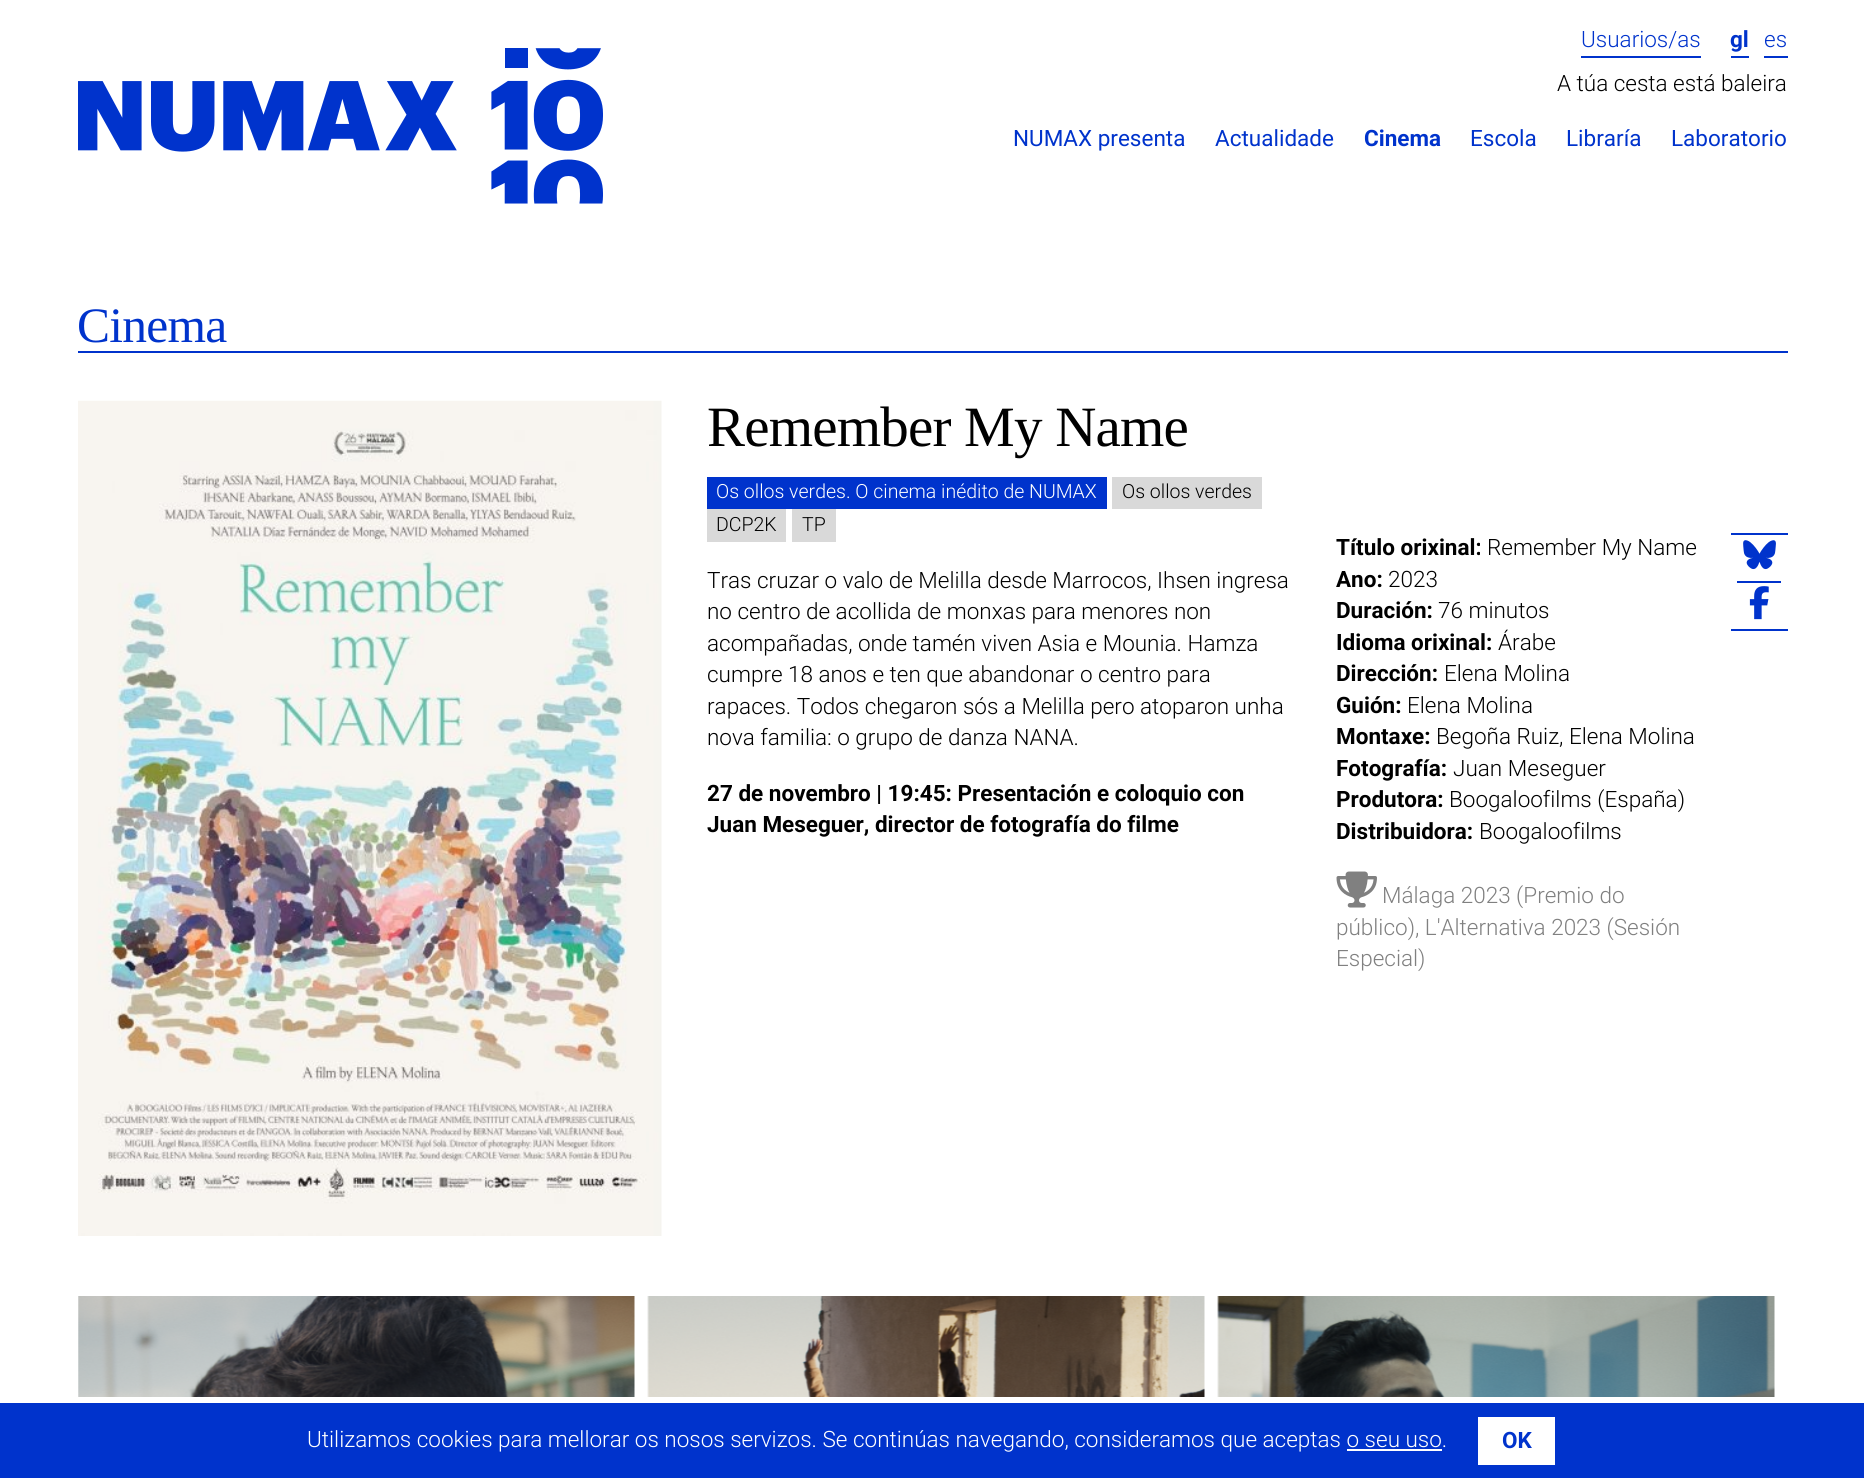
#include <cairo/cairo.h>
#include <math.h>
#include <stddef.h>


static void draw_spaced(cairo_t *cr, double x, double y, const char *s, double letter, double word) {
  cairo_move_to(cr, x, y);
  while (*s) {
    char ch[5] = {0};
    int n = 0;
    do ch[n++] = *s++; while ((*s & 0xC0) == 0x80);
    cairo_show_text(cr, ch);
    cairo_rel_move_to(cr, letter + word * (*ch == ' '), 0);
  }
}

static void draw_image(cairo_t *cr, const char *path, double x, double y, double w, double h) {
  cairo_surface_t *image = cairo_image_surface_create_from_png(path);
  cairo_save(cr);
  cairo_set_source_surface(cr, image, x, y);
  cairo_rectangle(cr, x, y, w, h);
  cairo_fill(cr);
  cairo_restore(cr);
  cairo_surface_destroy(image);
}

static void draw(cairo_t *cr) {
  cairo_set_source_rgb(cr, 1, 1, 1);
  cairo_paint(cr);
  draw_image(cr, "images/1.png", 78, 48, 525, 156);
  cairo_set_source_rgb(cr, 0, 51 / 255.0, 204 / 255.0);
  cairo_rectangle(cr, 1581, 56, 120, 2);
  cairo_fill(cr);
  cairo_rectangle(cr, 1731, 56, 18, 2);
  cairo_fill(cr);
  cairo_rectangle(cr, 1764, 56, 24, 2);
  cairo_fill(cr);
  cairo_rectangle(cr, 78, 351, 1710, 2);
  cairo_fill(cr);
  draw_image(cr, "images/2.png", 78, 400, 584, 836);
  cairo_rectangle(cr, 707, 477, 400, 32);
  cairo_fill(cr);
  cairo_set_source_rgb(cr, 217 / 255.0, 217 / 255.0, 217 / 255.0);
  cairo_rectangle(cr, 1112, 477, 150, 32);
  cairo_fill(cr);
  cairo_rectangle(cr, 707, 509, 79, 33);
  cairo_fill(cr);
  cairo_rectangle(cr, 792, 509, 44, 33);
  cairo_fill(cr);
  draw_image(cr, "images/3.png", 1336, 871, 41, 37);
  cairo_set_source_rgb(cr, 0, 51 / 255.0, 204 / 255.0);
  cairo_rectangle(cr, 1731, 629, 57, 2);
  cairo_fill(cr);
  cairo_rectangle(cr, 1731, 533, 57, 2);
  cairo_fill(cr);
  draw_image(cr, "images/4.png", 1743, 540, 33, 30);
  cairo_rectangle(cr, 1737, 581, 44, 2);
  cairo_fill(cr);
  draw_image(cr, "images/5.png", 1749, 586, 20, 34);
  draw_image(cr, "images/6.png", 78, 1296, 557, 101);
  draw_image(cr, "images/7.png", 647, 1296, 558, 101);
  draw_image(cr, "images/8.png", 1217, 1296, 558, 101);
  cairo_rectangle(cr, 0, 1403, 1864, 75);
  cairo_fill(cr);
  cairo_set_source_rgb(cr, 1, 1, 1);
  cairo_rectangle(cr, 1478, 1417, 77, 48);
  cairo_fill(cr);
  cairo_rectangle(cr, 1347, 1449, 95, 2);
  cairo_fill(cr);
  cairo_select_font_face(cr, "Roboto Light", CAIRO_FONT_SLANT_NORMAL, CAIRO_FONT_WEIGHT_NORMAL);
  cairo_set_font_size(cr, 22.5);
  cairo_set_source_rgb(cr, 0, 51 / 255.0, 204 / 255.0);
  cairo_move_to(cr, 1581, 47);
  cairo_show_text(cr, "Usuarios/as");
  cairo_select_font_face(cr, "Roboto", CAIRO_FONT_SLANT_NORMAL, CAIRO_FONT_WEIGHT_BOLD);
  cairo_move_to(cr, 1730, 47);
  cairo_show_text(cr, "gl");
  cairo_select_font_face(cr, "Roboto Light", CAIRO_FONT_SLANT_NORMAL, CAIRO_FONT_WEIGHT_NORMAL);
  cairo_move_to(cr, 1764, 47);
  cairo_show_text(cr, "es");
  cairo_set_source_rgb(cr, 0, 0, 0);
  cairo_move_to(cr, 1557, 91);
  cairo_show_text(cr, "A túa cesta está baleira");
  cairo_select_font_face(cr, "Roboto", CAIRO_FONT_SLANT_NORMAL, CAIRO_FONT_WEIGHT_NORMAL);
  cairo_set_source_rgb(cr, 0, 51 / 255.0, 204 / 255.0);
  cairo_move_to(cr, 1013, 146);
  cairo_show_text(cr, "NUMAX presenta");
  cairo_move_to(cr, 1215, 146);
  cairo_show_text(cr, "Actualidade");
  cairo_select_font_face(cr, "Roboto", CAIRO_FONT_SLANT_NORMAL, CAIRO_FONT_WEIGHT_BOLD);
  cairo_move_to(cr, 1364, 146);
  cairo_show_text(cr, "Cinema");
  cairo_select_font_face(cr, "Roboto", CAIRO_FONT_SLANT_NORMAL, CAIRO_FONT_WEIGHT_NORMAL);
  cairo_move_to(cr, 1470, 146);
  cairo_show_text(cr, "Escola");
  cairo_move_to(cr, 1566, 146);
  cairo_show_text(cr, "Libraría");
  cairo_move_to(cr, 1671, 146);
  cairo_show_text(cr, "Laboratorio");
  cairo_select_font_face(cr, "Liberation Serif", CAIRO_FONT_SLANT_NORMAL, CAIRO_FONT_WEIGHT_NORMAL);
  cairo_set_font_size(cr, 49.5);
  draw_spaced(cr, 77, 342, "Cinema", -0.75, 0);
  cairo_set_font_size(cr, 57);
  cairo_set_source_rgb(cr, 0, 0, 0);
  draw_spaced(cr, 707, 446, "Remember My Name", -0.8, 0);
  cairo_select_font_face(cr, "Roboto Light", CAIRO_FONT_SLANT_NORMAL, CAIRO_FONT_WEIGHT_NORMAL);
  cairo_set_font_size(cr, 19.5);
  cairo_set_source_rgb(cr, 1, 1, 1);
  cairo_move_to(cr, 716, 498);
  cairo_show_text(cr, "Os ollos verdes. O cinema inédito de NUMAX");
  cairo_set_source_rgb(cr, 0, 0, 0);
  cairo_move_to(cr, 1122, 498);
  cairo_show_text(cr, "Os ollos verdes");
  cairo_move_to(cr, 716, 531);
  cairo_show_text(cr, "DCP2K");
  cairo_move_to(cr, 802, 531);
  cairo_show_text(cr, "TP");
  cairo_set_font_size(cr, 22.5);
  cairo_move_to(cr, 707, 588);
  cairo_show_text(cr, "Tras cruzar o valo de Melilla desde Marrocos, Ihsen ingresa");
  cairo_move_to(cr, 707, 619);
  cairo_show_text(cr, "no centro de acollida de monxas para menores non");
  cairo_move_to(cr, 707, 651);
  cairo_show_text(cr, "acompañadas, onde tamén viven Asia e Mounia. Hamza");
  cairo_move_to(cr, 707, 682);
  cairo_show_text(cr, "cumpre 18 anos e ten que abandonar o centro para");
  cairo_move_to(cr, 707, 714);
  cairo_show_text(cr, "rapaces. Todos chegaron sós a Melilla pero atoparon unha");
  cairo_move_to(cr, 707, 745);
  cairo_show_text(cr, "nova familia: o grupo de danza NANA.");
  cairo_select_font_face(cr, "Roboto", CAIRO_FONT_SLANT_NORMAL, CAIRO_FONT_WEIGHT_BOLD);
  cairo_move_to(cr, 707, 801);
  cairo_show_text(cr, "27 de novembro | 19:45: Presentación e coloquio con");
  cairo_move_to(cr, 707, 832);
  cairo_show_text(cr, "Juan Meseguer, director de fotografía do filme");
  cairo_move_to(cr, 1336, 555);
  cairo_show_text(cr, "Título orixinal:");
  cairo_select_font_face(cr, "Roboto Light", CAIRO_FONT_SLANT_NORMAL, CAIRO_FONT_WEIGHT_NORMAL);
  cairo_move_to(cr, 1487, 555);
  cairo_show_text(cr, "Remember My Name");
  cairo_select_font_face(cr, "Roboto", CAIRO_FONT_SLANT_NORMAL, CAIRO_FONT_WEIGHT_BOLD);
  cairo_move_to(cr, 1336, 587);
  cairo_show_text(cr, "Ano:");
  cairo_select_font_face(cr, "Roboto Light", CAIRO_FONT_SLANT_NORMAL, CAIRO_FONT_WEIGHT_NORMAL);
  cairo_move_to(cr, 1388, 587);
  cairo_show_text(cr, "2023");
  cairo_select_font_face(cr, "Roboto", CAIRO_FONT_SLANT_NORMAL, CAIRO_FONT_WEIGHT_BOLD);
  cairo_move_to(cr, 1336, 618);
  cairo_show_text(cr, "Duración:");
  cairo_select_font_face(cr, "Roboto Light", CAIRO_FONT_SLANT_NORMAL, CAIRO_FONT_WEIGHT_NORMAL);
  cairo_move_to(cr, 1438, 618);
  cairo_show_text(cr, "76 minutos");
  cairo_select_font_face(cr, "Roboto", CAIRO_FONT_SLANT_NORMAL, CAIRO_FONT_WEIGHT_BOLD);
  cairo_move_to(cr, 1336, 650);
  cairo_show_text(cr, "Idioma orixinal:");
  cairo_select_font_face(cr, "Roboto Light", CAIRO_FONT_SLANT_NORMAL, CAIRO_FONT_WEIGHT_NORMAL);
  cairo_move_to(cr, 1498, 650);
  cairo_show_text(cr, "Árabe");
  cairo_select_font_face(cr, "Roboto", CAIRO_FONT_SLANT_NORMAL, CAIRO_FONT_WEIGHT_BOLD);
  cairo_move_to(cr, 1336, 681);
  cairo_show_text(cr, "Dirección:");
  cairo_select_font_face(cr, "Roboto Light", CAIRO_FONT_SLANT_NORMAL, CAIRO_FONT_WEIGHT_NORMAL);
  cairo_move_to(cr, 1444, 681);
  cairo_show_text(cr, "Elena Molina");
  cairo_select_font_face(cr, "Roboto", CAIRO_FONT_SLANT_NORMAL, CAIRO_FONT_WEIGHT_BOLD);
  cairo_move_to(cr, 1336, 713);
  cairo_show_text(cr, "Guión:");
  cairo_select_font_face(cr, "Roboto Light", CAIRO_FONT_SLANT_NORMAL, CAIRO_FONT_WEIGHT_NORMAL);
  cairo_move_to(cr, 1407, 713);
  cairo_show_text(cr, "Elena Molina");
  cairo_select_font_face(cr, "Roboto", CAIRO_FONT_SLANT_NORMAL, CAIRO_FONT_WEIGHT_BOLD);
  cairo_move_to(cr, 1336, 744);
  cairo_show_text(cr, "Montaxe:");
  cairo_select_font_face(cr, "Roboto Light", CAIRO_FONT_SLANT_NORMAL, CAIRO_FONT_WEIGHT_NORMAL);
  cairo_move_to(cr, 1436, 744);
  cairo_show_text(cr, "Begoña Ruiz, Elena Molina");
  cairo_select_font_face(cr, "Roboto", CAIRO_FONT_SLANT_NORMAL, CAIRO_FONT_WEIGHT_BOLD);
  cairo_move_to(cr, 1336, 776);
  cairo_show_text(cr, "Fotografía:");
  cairo_select_font_face(cr, "Roboto Light", CAIRO_FONT_SLANT_NORMAL, CAIRO_FONT_WEIGHT_NORMAL);
  cairo_move_to(cr, 1453, 776);
  cairo_show_text(cr, "Juan Meseguer");
  cairo_select_font_face(cr, "Roboto", CAIRO_FONT_SLANT_NORMAL, CAIRO_FONT_WEIGHT_BOLD);
  cairo_move_to(cr, 1336, 807);
  cairo_show_text(cr, "Produtora:");
  cairo_select_font_face(cr, "Roboto Light", CAIRO_FONT_SLANT_NORMAL, CAIRO_FONT_WEIGHT_NORMAL);
  cairo_move_to(cr, 1449, 807);
  cairo_show_text(cr, "Boogaloofilms (España)");
  cairo_select_font_face(cr, "Roboto", CAIRO_FONT_SLANT_NORMAL, CAIRO_FONT_WEIGHT_BOLD);
  cairo_move_to(cr, 1336, 839);
  cairo_show_text(cr, "Distribuidora:");
  cairo_select_font_face(cr, "Roboto Light", CAIRO_FONT_SLANT_NORMAL, CAIRO_FONT_WEIGHT_NORMAL);
  cairo_move_to(cr, 1479, 839);
  cairo_show_text(cr, "Boogaloofilms");
  cairo_set_source_rgb(cr, 128 / 255.0, 128 / 255.0, 128 / 255.0);
  cairo_move_to(cr, 1382, 903);
  cairo_show_text(cr, "Málaga 2023 (Premio do");
  cairo_move_to(cr, 1336, 935);
  cairo_show_text(cr, "público), L'Alternativa 2023 (Sesión");
  cairo_move_to(cr, 1336, 966);
  cairo_show_text(cr, "Especial)");
  cairo_set_source_rgb(cr, 1, 1, 1);
  cairo_move_to(cr, 307, 1447);
  cairo_show_text(cr, "Utilizamos cookies para mellorar os nosos servizos. Se continúas navegando, consideramos que aceptas o seu uso.");
  cairo_select_font_face(cr, "Roboto", CAIRO_FONT_SLANT_NORMAL, CAIRO_FONT_WEIGHT_BOLD);
  cairo_set_source_rgb(cr, 0, 51 / 255.0, 204 / 255.0);
  cairo_move_to(cr, 1502, 1448);
  cairo_show_text(cr, "OK");
}

int main(void) {
  cairo_surface_t *surface = cairo_image_surface_create(CAIRO_FORMAT_RGB24, 1864, 1478);
  cairo_t *cr = cairo_create(surface);
  cairo_font_options_t *options = cairo_font_options_create();
  cairo_font_options_set_hint_metrics(options, CAIRO_HINT_METRICS_OFF);
  cairo_font_options_set_hint_style(options, CAIRO_HINT_STYLE_NONE);
  cairo_set_font_options(cr, options);
  cairo_set_miter_limit(cr, 4);
  draw(cr);
  cairo_surface_write_to_png(surface, "out.png");
  cairo_font_options_destroy(options);
  cairo_destroy(cr);
  cairo_surface_destroy(surface);
  return 0;
}
